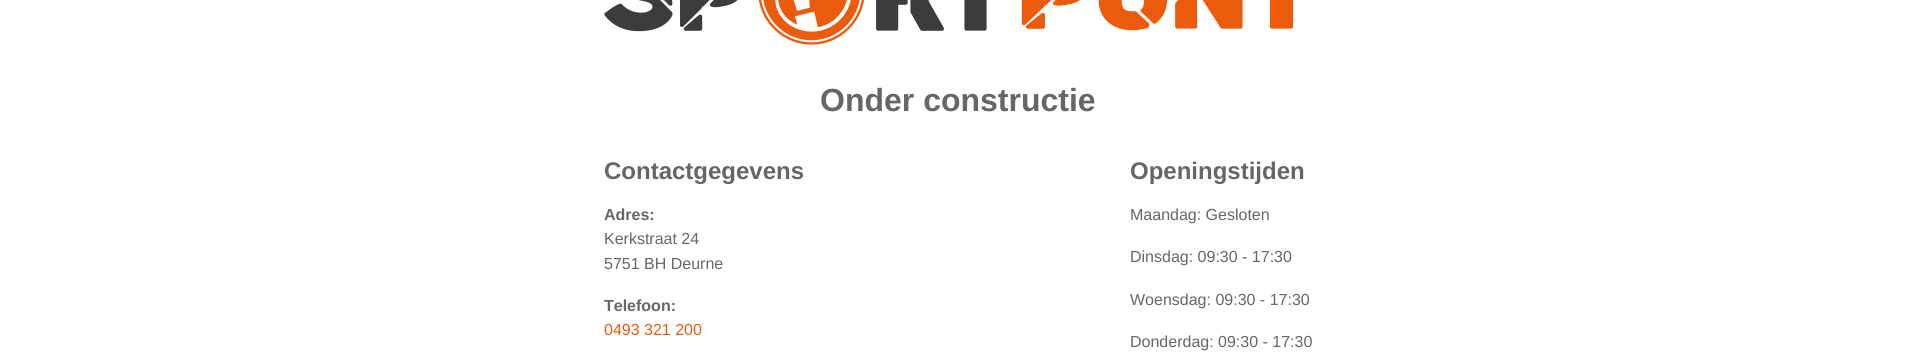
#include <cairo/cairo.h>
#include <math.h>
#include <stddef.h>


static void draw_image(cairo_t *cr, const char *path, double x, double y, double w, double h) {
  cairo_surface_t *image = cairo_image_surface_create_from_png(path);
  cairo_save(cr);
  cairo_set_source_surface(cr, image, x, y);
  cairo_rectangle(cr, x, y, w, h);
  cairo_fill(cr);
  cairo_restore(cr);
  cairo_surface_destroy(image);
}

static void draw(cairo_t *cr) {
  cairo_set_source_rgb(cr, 1, 1, 1);
  cairo_paint(cr);
  draw_image(cr, "images/1.png", 604, 0, 690, 45);
  cairo_select_font_face(cr, "Liberation Sans", CAIRO_FONT_SLANT_NORMAL, CAIRO_FONT_WEIGHT_BOLD);
  cairo_set_font_size(cr, 32);
  cairo_set_source_rgb(cr, 102 / 255.0, 102 / 255.0, 102 / 255.0);
  cairo_move_to(cr, 820, 111);
  cairo_show_text(cr, "Onder constructie");
  cairo_set_font_size(cr, 24);
  cairo_move_to(cr, 604, 179);
  cairo_show_text(cr, "Contactgegevens");
  cairo_set_font_size(cr, 16);
  cairo_move_to(cr, 604, 220);
  cairo_show_text(cr, "Adres:");
  cairo_select_font_face(cr, "Liberation Sans", CAIRO_FONT_SLANT_NORMAL, CAIRO_FONT_WEIGHT_NORMAL);
  cairo_move_to(cr, 604, 244);
  cairo_show_text(cr, "Kerkstraat 24");
  cairo_move_to(cr, 604, 269);
  cairo_show_text(cr, "5751 BH Deurne");
  cairo_select_font_face(cr, "Liberation Sans", CAIRO_FONT_SLANT_NORMAL, CAIRO_FONT_WEIGHT_BOLD);
  cairo_move_to(cr, 604, 311);
  cairo_show_text(cr, "Telefoon:");
  cairo_select_font_face(cr, "Liberation Sans", CAIRO_FONT_SLANT_NORMAL, CAIRO_FONT_WEIGHT_NORMAL);
  cairo_set_source_rgb(cr, 234 / 255.0, 91 / 255.0, 12 / 255.0);
  cairo_move_to(cr, 604, 335);
  cairo_show_text(cr, "0493 321 200");
  cairo_select_font_face(cr, "Liberation Sans", CAIRO_FONT_SLANT_NORMAL, CAIRO_FONT_WEIGHT_BOLD);
  cairo_set_font_size(cr, 24);
  cairo_set_source_rgb(cr, 102 / 255.0, 102 / 255.0, 102 / 255.0);
  cairo_move_to(cr, 1130, 179);
  cairo_show_text(cr, "Openingstijden");
  cairo_select_font_face(cr, "Liberation Sans", CAIRO_FONT_SLANT_NORMAL, CAIRO_FONT_WEIGHT_NORMAL);
  cairo_set_font_size(cr, 16);
  cairo_move_to(cr, 1130, 220);
  cairo_show_text(cr, "Maandag: Gesloten");
  cairo_move_to(cr, 1130, 262);
  cairo_show_text(cr, "Dinsdag: 09:30 - 17:30");
  cairo_move_to(cr, 1130, 305);
  cairo_show_text(cr, "Woensdag: 09:30 - 17:30");
  cairo_move_to(cr, 1130, 347);
  cairo_show_text(cr, "Donderdag: 09:30 - 17:30");
}

int main(void) {
  cairo_surface_t *surface = cairo_image_surface_create(CAIRO_FORMAT_RGB24, 1916, 362);
  cairo_t *cr = cairo_create(surface);
  cairo_font_options_t *options = cairo_font_options_create();
  cairo_font_options_set_hint_metrics(options, CAIRO_HINT_METRICS_OFF);
  cairo_font_options_set_hint_style(options, CAIRO_HINT_STYLE_NONE);
  cairo_set_font_options(cr, options);
  cairo_set_miter_limit(cr, 4);
  draw(cr);
  cairo_surface_write_to_png(surface, "out.png");
  cairo_font_options_destroy(options);
  cairo_destroy(cr);
  cairo_surface_destroy(surface);
  return 0;
}
